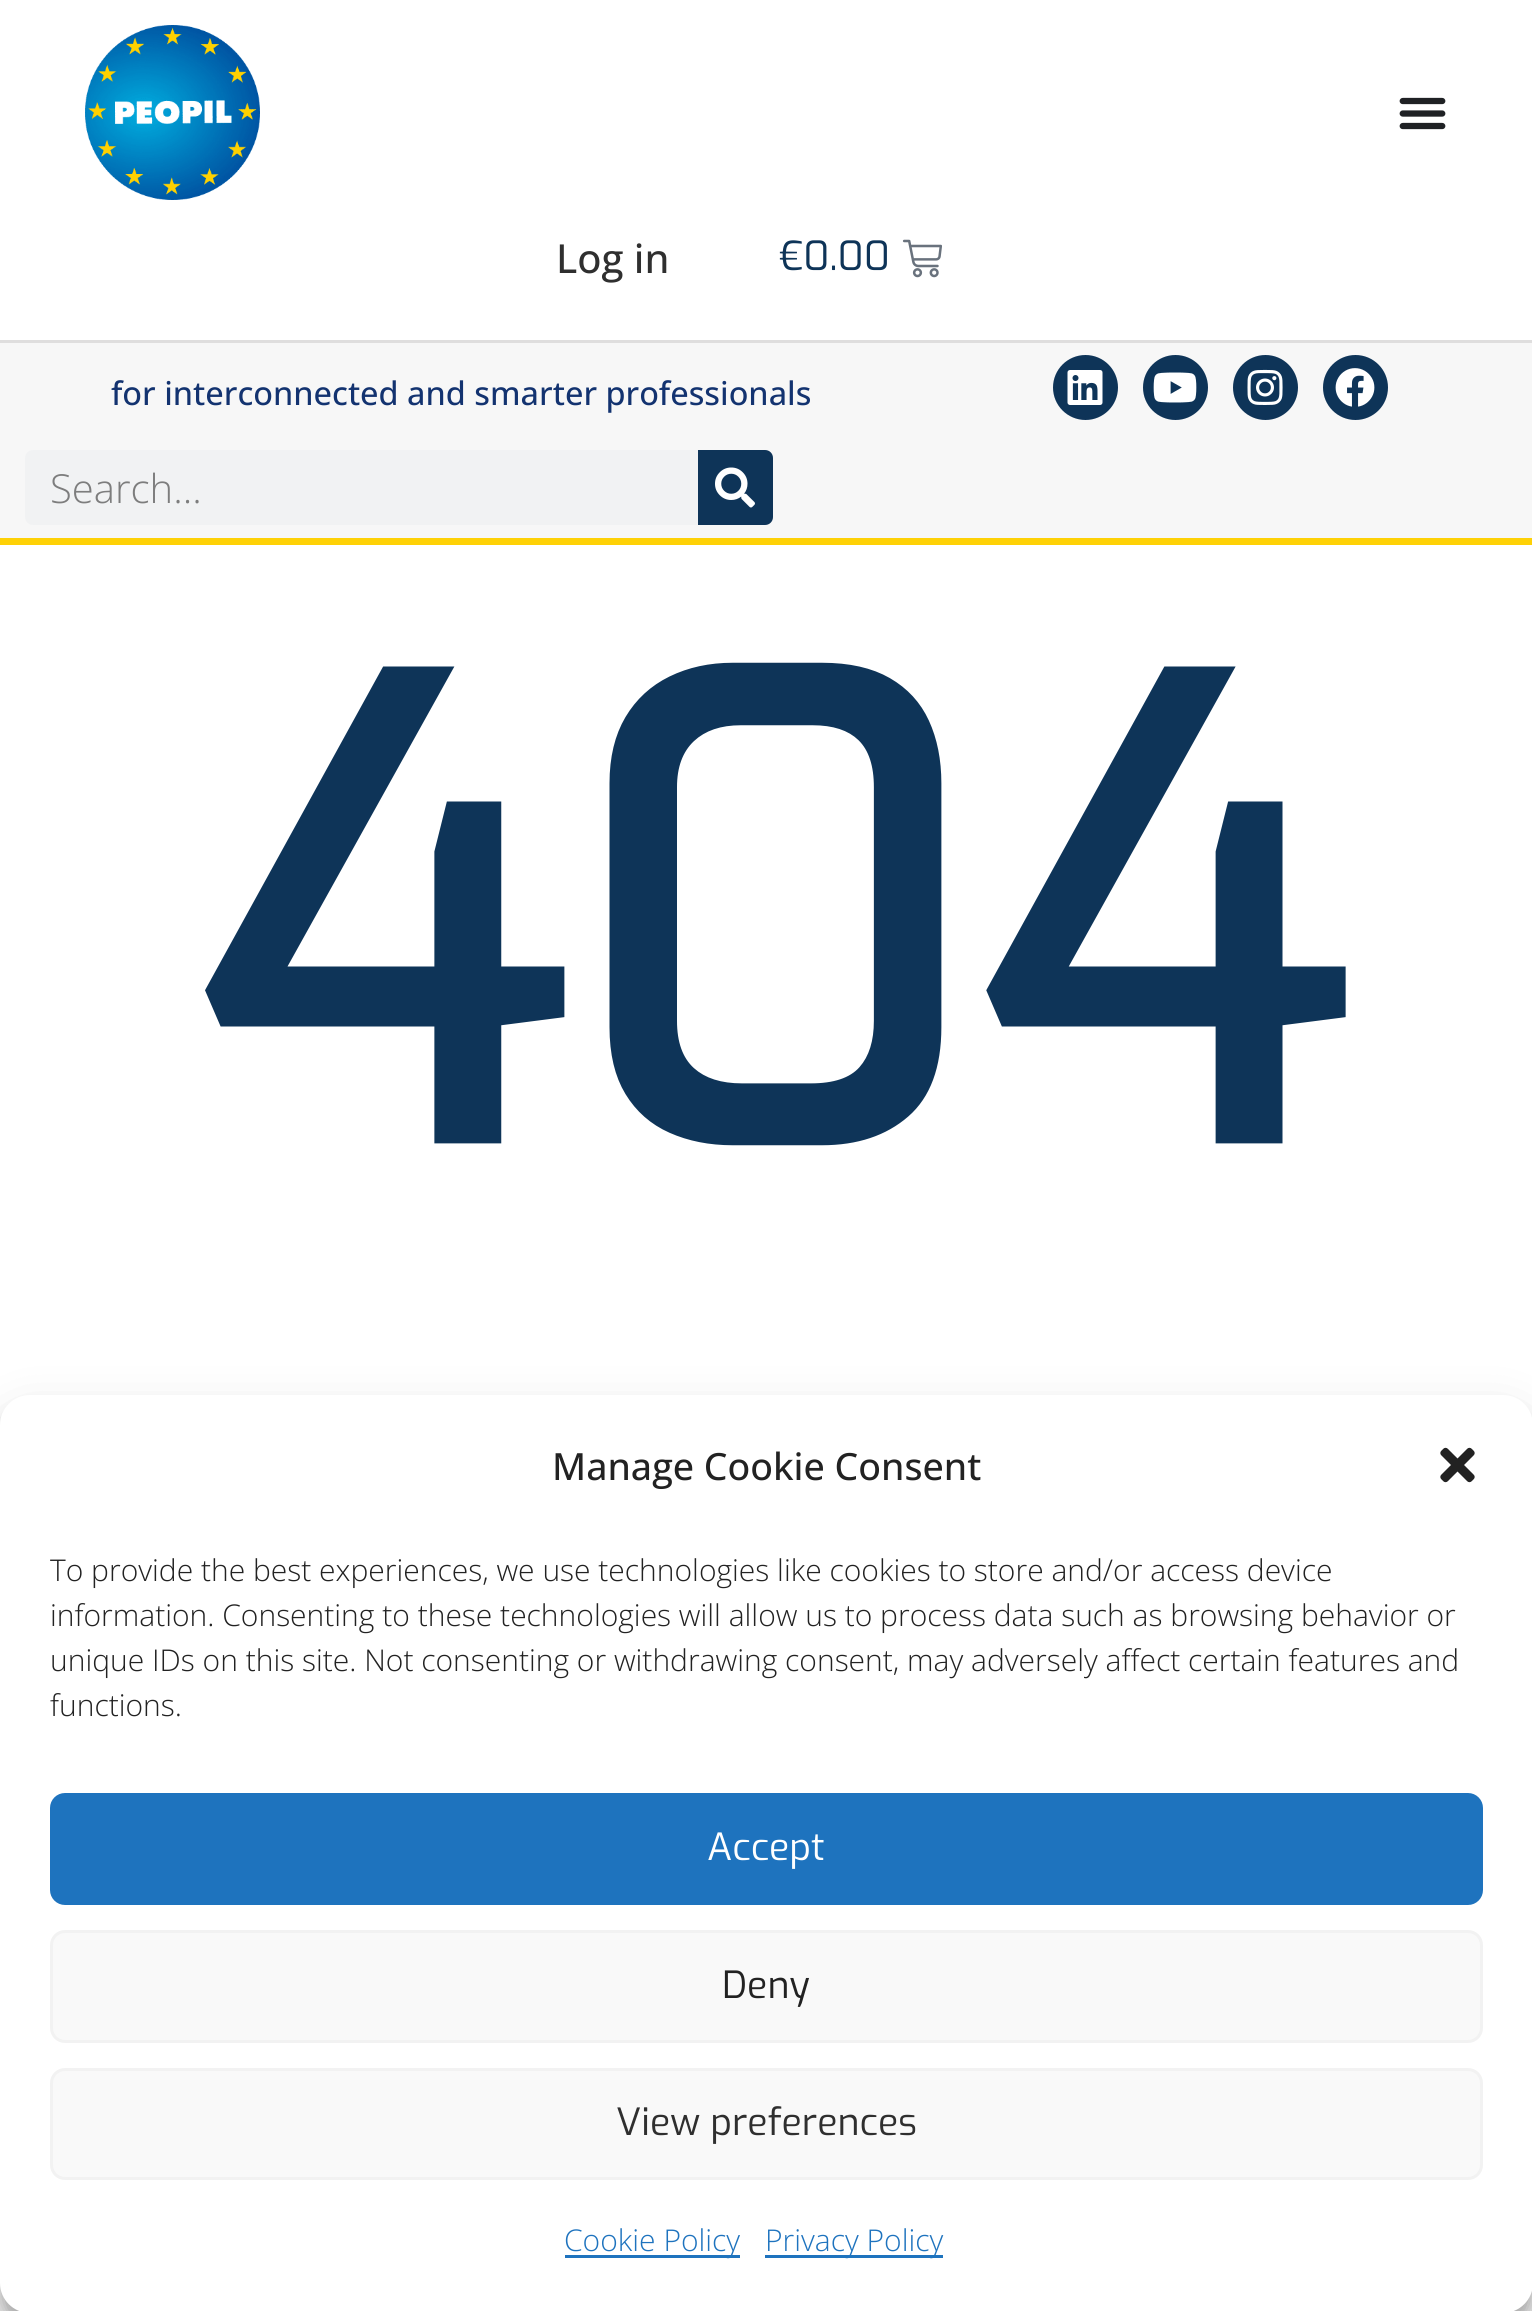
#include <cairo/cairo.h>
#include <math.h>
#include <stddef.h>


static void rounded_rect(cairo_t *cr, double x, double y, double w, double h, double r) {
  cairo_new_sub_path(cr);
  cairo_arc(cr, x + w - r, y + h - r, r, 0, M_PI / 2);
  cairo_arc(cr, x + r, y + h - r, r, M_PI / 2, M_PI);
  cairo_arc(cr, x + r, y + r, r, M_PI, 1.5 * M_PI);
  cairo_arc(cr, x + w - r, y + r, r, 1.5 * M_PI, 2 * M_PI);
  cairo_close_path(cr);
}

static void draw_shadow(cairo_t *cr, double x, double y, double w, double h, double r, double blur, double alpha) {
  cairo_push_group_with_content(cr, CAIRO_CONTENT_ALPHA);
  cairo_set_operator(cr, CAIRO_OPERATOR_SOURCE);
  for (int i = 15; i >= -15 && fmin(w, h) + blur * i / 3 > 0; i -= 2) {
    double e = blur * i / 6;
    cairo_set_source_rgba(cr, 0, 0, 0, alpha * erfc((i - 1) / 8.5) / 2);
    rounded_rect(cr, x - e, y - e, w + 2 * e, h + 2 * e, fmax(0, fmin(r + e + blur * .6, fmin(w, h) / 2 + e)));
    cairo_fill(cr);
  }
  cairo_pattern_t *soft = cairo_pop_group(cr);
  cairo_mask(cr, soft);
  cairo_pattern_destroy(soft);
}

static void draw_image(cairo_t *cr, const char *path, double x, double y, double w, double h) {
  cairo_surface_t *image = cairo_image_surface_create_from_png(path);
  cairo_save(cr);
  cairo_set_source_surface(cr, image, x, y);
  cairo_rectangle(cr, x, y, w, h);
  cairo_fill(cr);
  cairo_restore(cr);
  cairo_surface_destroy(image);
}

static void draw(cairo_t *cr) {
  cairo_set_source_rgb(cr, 247 / 255.0, 247 / 255.0, 247 / 255.0);
  cairo_paint(cr);
  cairo_set_source_rgb(cr, 1, 1, 1);
  cairo_rectangle(cr, 0, 0, 1532, 340);
  cairo_fill(cr);
  cairo_set_source_rgb(cr, 223 / 255.0, 222 / 255.0, 222 / 255.0);
  cairo_rectangle(cr, 0, 340, 1532, 3);
  cairo_fill(cr);
  draw_image(cr, "images/1.png", 85, 25, 175, 175);
  draw_image(cr, "images/2.png", 1399, 97, 47, 33);
  draw_image(cr, "images/3.png", 902, 239, 40, 39);
  cairo_set_source_rgb(cr, 254 / 255.0, 209 / 255.0, 6 / 255.0);
  cairo_rectangle(cr, 0, 538, 1532, 7);
  cairo_fill(cr);
  cairo_set_source_rgb(cr, 14 / 255.0, 52 / 255.0, 88 / 255.0);
  cairo_arc(cr, 1085.5, 387.5, 32.5, 0, 2 * M_PI);
  cairo_fill(cr);
  draw_image(cr, "images/4.png", 1067, 370, 36, 35);
  cairo_arc(cr, 1175.5, 387.5, 32.5, 0, 2 * M_PI);
  cairo_fill(cr);
  draw_image(cr, "images/5.png", 1153, 372, 44, 31);
  cairo_arc(cr, 1265.5, 387.5, 32.5, 0, 2 * M_PI);
  cairo_fill(cr);
  draw_image(cr, "images/6.png", 1247, 369, 36, 36);
  cairo_arc(cr, 1355.5, 387.5, 32.5, 0, 2 * M_PI);
  cairo_fill(cr);
  draw_image(cr, "images/7.png", 1335, 368, 40, 39);
  cairo_set_source_rgb(cr, 241 / 255.0, 242 / 255.0, 243 / 255.0);
  rounded_rect(cr, 25, 450, 748, 75, 8);
  cairo_fill(cr);
  cairo_set_source_rgb(cr, 14 / 255.0, 52 / 255.0, 88 / 255.0);
  cairo_new_path(cr);
  cairo_move_to(cr, 698, 450);
  cairo_line_to(cr, 765, 450);
  cairo_curve_to(cr, 769.5, 450, 773, 453.5, 773, 458);
  cairo_line_to(cr, 773, 517);
  cairo_curve_to(cr, 773, 521.5, 769.5, 525, 765, 525);
  cairo_line_to(cr, 698, 525);
  cairo_close_path(cr);
  cairo_fill(cr);
  draw_image(cr, "images/8.png", 715, 467, 40, 41);
  cairo_set_source_rgb(cr, 1, 1, 1);
  cairo_rectangle(cr, 0, 545, 1532, 1766);
  cairo_fill(cr);
  cairo_set_source_rgb(cr, 0, 0, 0);
  draw_shadow(cr, 0, 1410, 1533, 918, 30, 7.5, 0.23);
  draw_shadow(cr, 0, 1420, 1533, 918, 30, 25, 0.19);
  cairo_set_source_rgb(cr, 1, 1, 1);
  rounded_rect(cr, 0, 1395, 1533, 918, 30);
  cairo_fill(cr);
  draw_image(cr, "images/9.png", 1440, 1447, 35, 36);
  cairo_set_source_rgb(cr, 30 / 255.0, 115 / 255.0, 190 / 255.0);
  rounded_rect(cr, 51.5, 1794.5, 1430, 109, 13.5);
  cairo_fill_preserve(cr);
  cairo_set_line_width(cr, 3);
  cairo_stroke(cr);
  cairo_set_source_rgb(cr, 249 / 255.0, 249 / 255.0, 249 / 255.0);
  rounded_rect(cr, 51.5, 1931.5, 1430, 110, 13.5);
  cairo_fill_preserve(cr);
  cairo_set_source_rgb(cr, 242 / 255.0, 242 / 255.0, 242 / 255.0);
  cairo_stroke(cr);
  cairo_set_source_rgb(cr, 249 / 255.0, 249 / 255.0, 249 / 255.0);
  rounded_rect(cr, 51.5, 2069.5, 1430, 109, 13.5);
  cairo_fill_preserve(cr);
  cairo_set_source_rgb(cr, 242 / 255.0, 242 / 255.0, 242 / 255.0);
  cairo_stroke(cr);
  cairo_set_source_rgb(cr, 30 / 255.0, 115 / 255.0, 190 / 255.0);
  cairo_rectangle(cr, 565, 2255, 175, 3);
  cairo_fill(cr);
  cairo_rectangle(cr, 765, 2255, 178, 3);
  cairo_fill(cr);
  cairo_select_font_face(cr, "Open Sans Medium", CAIRO_FONT_SLANT_NORMAL, CAIRO_FONT_WEIGHT_NORMAL);
  cairo_set_font_size(cr, 40);
  cairo_set_source_rgb(cr, 47 / 255.0, 47 / 255.0, 47 / 255.0);
  cairo_move_to(cr, 556, 273);
  cairo_show_text(cr, "Log in");
  cairo_select_font_face(cr, "Exo", CAIRO_FONT_SLANT_NORMAL, CAIRO_FONT_WEIGHT_NORMAL);
  cairo_set_source_rgb(cr, 14 / 255.0, 52 / 255.0, 88 / 255.0);
  cairo_move_to(cr, 779, 270);
  cairo_show_text(cr, "€0.00");
  cairo_select_font_face(cr, "Open Sans Medium", CAIRO_FONT_SLANT_NORMAL, CAIRO_FONT_WEIGHT_NORMAL);
  cairo_set_font_size(cr, 32.5);
  cairo_set_source_rgb(cr, 19 / 255.0, 51 / 255.0, 112 / 255.0);
  cairo_move_to(cr, 111, 405);
  cairo_show_text(cr, "for interconnected and smarter professionals");
  cairo_select_font_face(cr, "Open Sans Light", CAIRO_FONT_SLANT_NORMAL, CAIRO_FONT_WEIGHT_NORMAL);
  cairo_set_font_size(cr, 40);
  cairo_set_source_rgb(cr, 125 / 255.0, 125 / 255.0, 125 / 255.0);
  cairo_move_to(cr, 50, 503);
  cairo_show_text(cr, "Search...");
  cairo_select_font_face(cr, "Exo", CAIRO_FONT_SLANT_NORMAL, CAIRO_FONT_WEIGHT_BOLD);
  cairo_set_font_size(cr, 625);
  cairo_set_source_rgb(cr, 14 / 255.0, 52 / 255.0, 88 / 255.0);
  cairo_move_to(cr, 190, 1144);
  cairo_show_text(cr, "404");
  cairo_select_font_face(cr, "Open Sans Medium", CAIRO_FONT_SLANT_NORMAL, CAIRO_FONT_WEIGHT_NORMAL);
  cairo_set_font_size(cr, 37.5);
  cairo_set_source_rgb(cr, 34 / 255.0, 34 / 255.0, 34 / 255.0);
  cairo_move_to(cr, 552, 1480);
  cairo_show_text(cr, "Manage Cookie Consent");
  cairo_select_font_face(cr, "Open Sans Light", CAIRO_FONT_SLANT_NORMAL, CAIRO_FONT_WEIGHT_NORMAL);
  cairo_set_font_size(cr, 30);
  cairo_move_to(cr, 50, 1581);
  cairo_show_text(cr, "To provide the best experiences, we use technologies like cookies to store and/or access device");
  cairo_move_to(cr, 50, 1626);
  cairo_show_text(cr, "information. Consenting to these technologies will allow us to process data such as browsing behavior or");
  cairo_move_to(cr, 50, 1671);
  cairo_show_text(cr, "unique IDs on this site. Not consenting or withdrawing consent, may adversely affect certain features and");
  cairo_move_to(cr, 50, 1716);
  cairo_show_text(cr, "functions.");
  cairo_select_font_face(cr, "Exo", CAIRO_FONT_SLANT_NORMAL, CAIRO_FONT_WEIGHT_NORMAL);
  cairo_set_font_size(cr, 37.5);
  cairo_set_source_rgb(cr, 1, 1, 1);
  cairo_move_to(cr, 707, 1860);
  cairo_show_text(cr, "Accept");
  cairo_set_source_rgb(cr, 34 / 255.0, 34 / 255.0, 34 / 255.0);
  cairo_move_to(cr, 722, 1998);
  cairo_show_text(cr, "Deny");
  cairo_set_source_rgb(cr, 47 / 255.0, 47 / 255.0, 47 / 255.0);
  cairo_move_to(cr, 616, 2135);
  cairo_show_text(cr, "View preferences");
  cairo_select_font_face(cr, "Open Sans Light", CAIRO_FONT_SLANT_NORMAL, CAIRO_FONT_WEIGHT_NORMAL);
  cairo_set_font_size(cr, 30);
  cairo_set_source_rgb(cr, 30 / 255.0, 115 / 255.0, 190 / 255.0);
  cairo_move_to(cr, 564, 2251);
  cairo_show_text(cr, "Cookie Policy");
  cairo_move_to(cr, 765, 2251);
  cairo_show_text(cr, "Privacy Policy");
}

int main(void) {
  cairo_surface_t *surface = cairo_image_surface_create(CAIRO_FORMAT_RGB24, 1532, 2311);
  cairo_t *cr = cairo_create(surface);
  cairo_font_options_t *options = cairo_font_options_create();
  cairo_font_options_set_hint_metrics(options, CAIRO_HINT_METRICS_OFF);
  cairo_font_options_set_hint_style(options, CAIRO_HINT_STYLE_NONE);
  cairo_set_font_options(cr, options);
  cairo_set_miter_limit(cr, 4);
  draw(cr);
  cairo_surface_write_to_png(surface, "out.png");
  cairo_font_options_destroy(options);
  cairo_destroy(cr);
  cairo_surface_destroy(surface);
  return 0;
}
